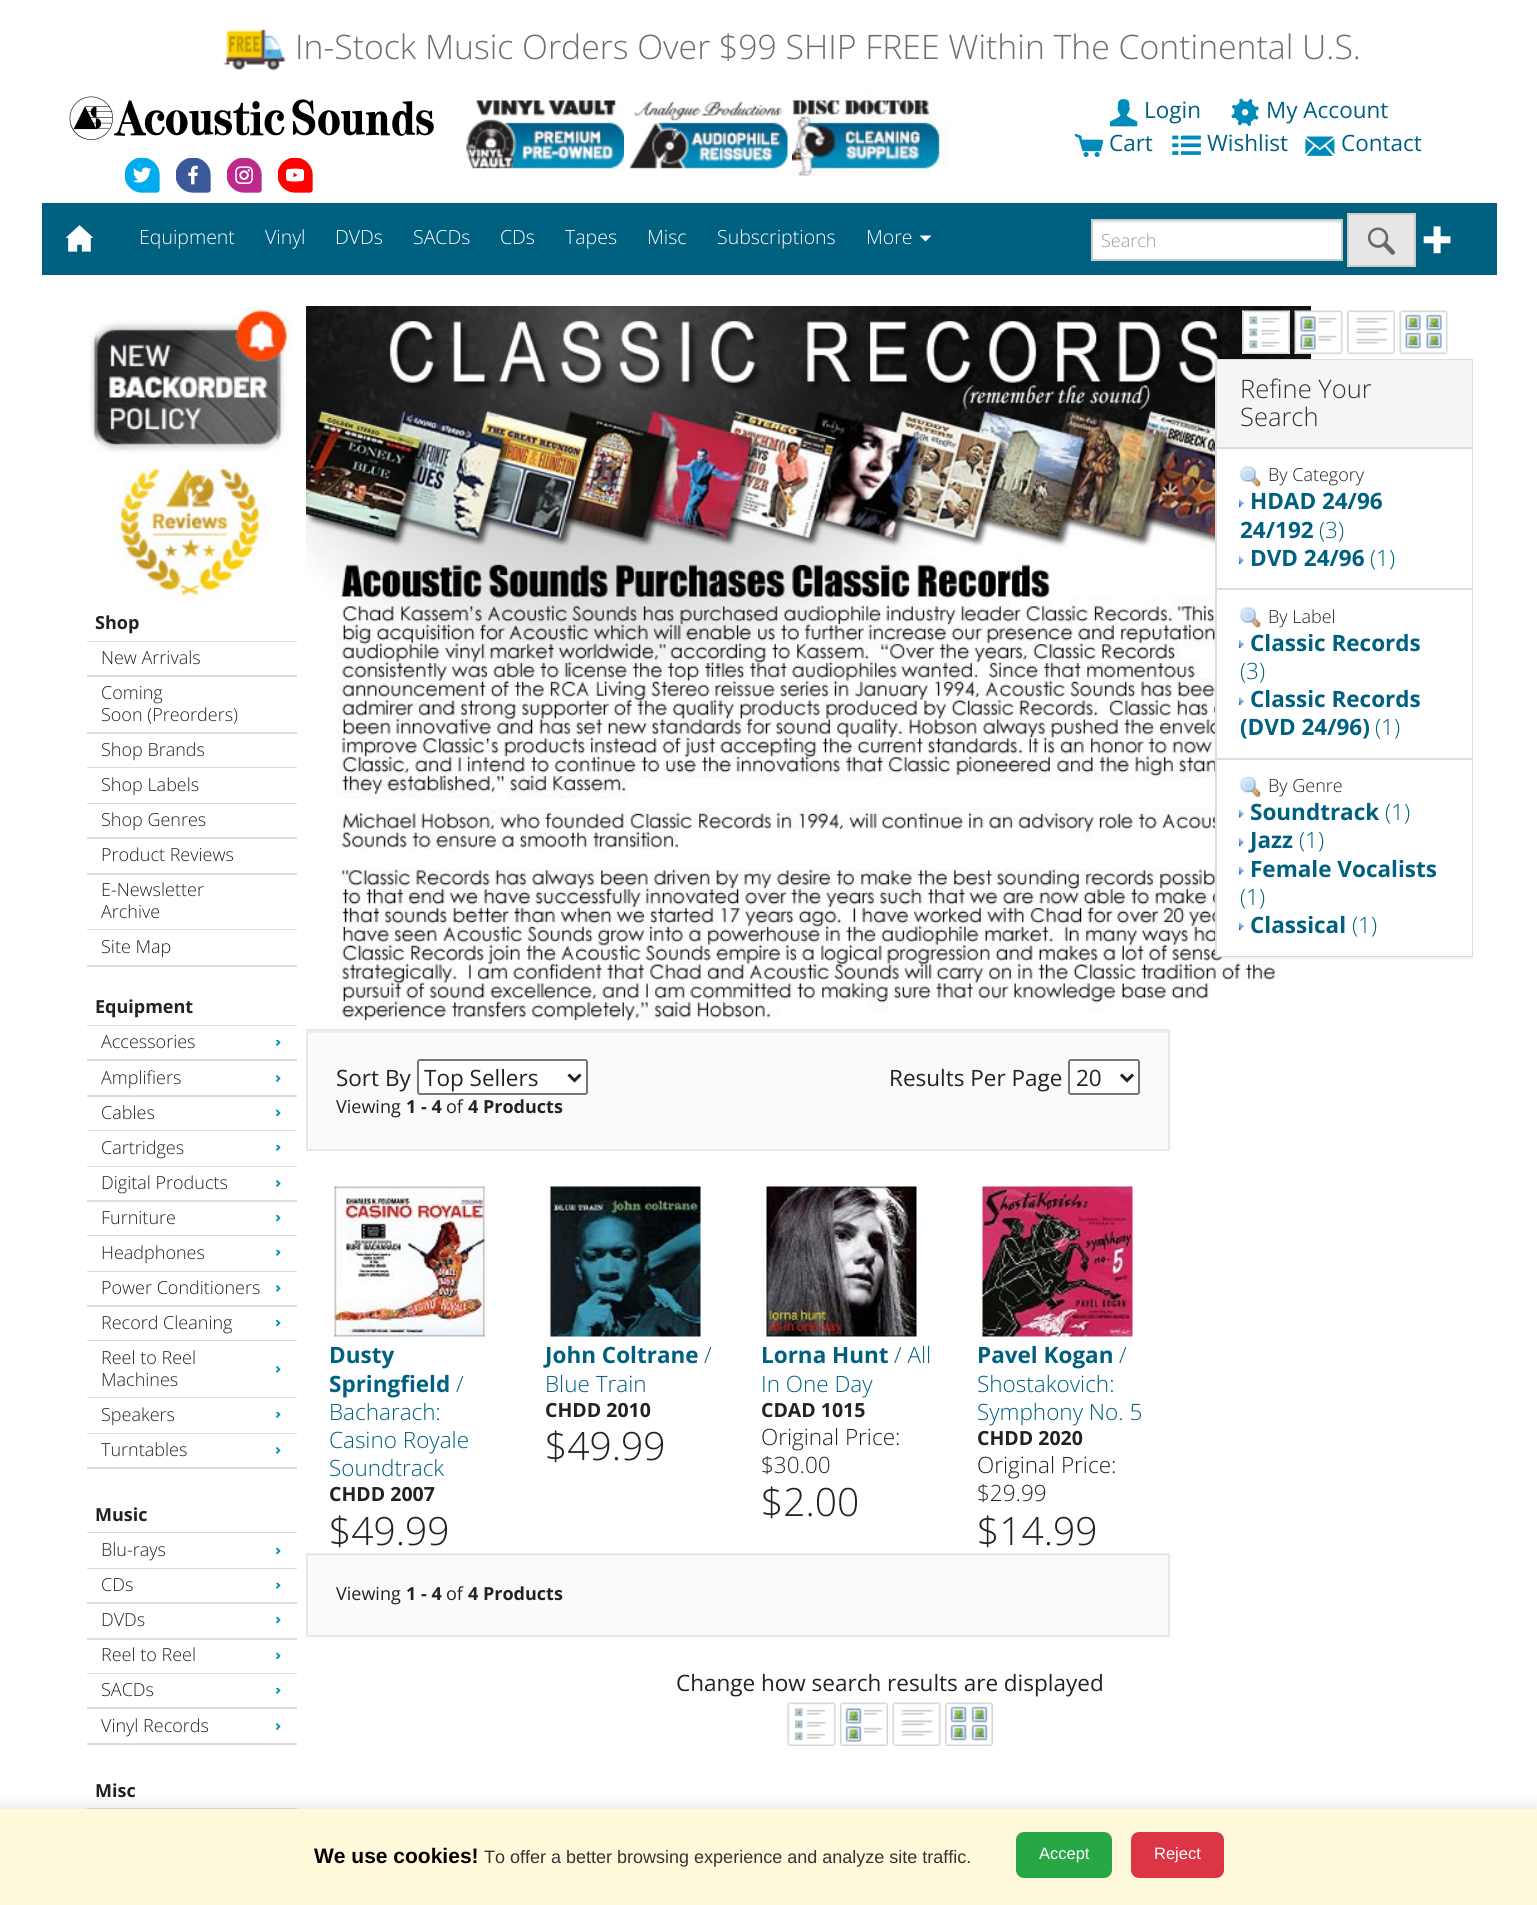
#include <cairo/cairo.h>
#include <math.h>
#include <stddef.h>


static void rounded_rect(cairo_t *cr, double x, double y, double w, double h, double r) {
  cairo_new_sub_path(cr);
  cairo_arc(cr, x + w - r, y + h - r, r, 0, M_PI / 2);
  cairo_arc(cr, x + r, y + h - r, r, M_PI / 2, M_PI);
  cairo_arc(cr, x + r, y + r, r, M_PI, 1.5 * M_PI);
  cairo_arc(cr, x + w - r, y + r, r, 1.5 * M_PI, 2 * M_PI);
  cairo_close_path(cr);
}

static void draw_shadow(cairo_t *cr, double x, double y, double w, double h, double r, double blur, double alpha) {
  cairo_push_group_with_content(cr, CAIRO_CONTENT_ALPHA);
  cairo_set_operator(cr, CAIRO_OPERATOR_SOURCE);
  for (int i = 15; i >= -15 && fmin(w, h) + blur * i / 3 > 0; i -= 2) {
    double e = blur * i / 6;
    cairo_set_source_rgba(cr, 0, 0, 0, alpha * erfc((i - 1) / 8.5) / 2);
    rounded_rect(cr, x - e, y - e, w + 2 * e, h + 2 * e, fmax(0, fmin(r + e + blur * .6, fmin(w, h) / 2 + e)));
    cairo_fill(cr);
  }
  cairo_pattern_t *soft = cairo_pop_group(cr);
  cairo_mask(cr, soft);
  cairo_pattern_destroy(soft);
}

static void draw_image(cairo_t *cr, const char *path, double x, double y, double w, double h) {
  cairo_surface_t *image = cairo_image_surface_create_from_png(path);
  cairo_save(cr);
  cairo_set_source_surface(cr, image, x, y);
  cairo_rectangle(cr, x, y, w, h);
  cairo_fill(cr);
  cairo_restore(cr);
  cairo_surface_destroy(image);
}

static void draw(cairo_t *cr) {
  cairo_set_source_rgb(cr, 1, 1, 1);
  cairo_paint(cr);
  draw_image(cr, "images/1.png", 223, 29, 63, 42);
  draw_image(cr, "images/2.png", 69, 96, 365, 44);
  draw_image(cr, "images/3.png", 125, 158, 35, 35);
  draw_image(cr, "images/4.png", 176, 158, 35, 35);
  draw_image(cr, "images/5.png", 227, 158, 35, 35);
  draw_image(cr, "images/6.png", 278, 158, 35, 35);
  draw_image(cr, "images/7.png", 466, 100, 158, 69);
  draw_image(cr, "images/8.png", 630, 101, 158, 68);
  draw_image(cr, "images/9.png", 792, 94, 156, 83);
  draw_image(cr, "images/10.png", 1110, 99, 28, 28);
  draw_image(cr, "images/11.png", 1231, 98, 28, 29);
  draw_image(cr, "images/12.png", 1074, 133, 30, 24);
  draw_image(cr, "images/13.png", 1172, 135, 29, 20);
  draw_image(cr, "images/14.png", 1305, 136, 30, 20);
  cairo_set_source_rgb(cr, 0, 96 / 255.0, 128 / 255.0);
  cairo_rectangle(cr, 42, 203, 1455, 72);
  cairo_fill(cr);
  draw_image(cr, "images/15.png", 65, 225, 29, 27);
  cairo_set_source_rgb(cr, 1, 1, 1);
  cairo_new_path(cr);
  cairo_move_to(cr, 919.5, 235.5);
  cairo_line_to(cr, 931.5, 235.5);
  cairo_line_to(cr, 925.5, 241.5);
  cairo_close_path(cr);
  cairo_fill(cr);
  cairo_rectangle(cr, 1093, 223, 248, 36);
  cairo_fill(cr);
  cairo_set_source_rgb(cr, 236 / 255.0, 236 / 255.0, 236 / 255.0);
  cairo_rectangle(cr, 1092, 221, 249, 2);
  cairo_fill(cr);
  cairo_rectangle(cr, 1092, 220, 250, 40);
  cairo_set_source_rgb(cr, 204 / 255.0, 204 / 255.0, 204 / 255.0);
  cairo_stroke(cr);
  cairo_set_source_rgb(cr, 231 / 255.0, 231 / 255.0, 231 / 255.0);
  cairo_rectangle(cr, 1348, 214, 67, 52);
  cairo_fill_preserve(cr);
  cairo_set_source_rgb(cr, 204 / 255.0, 204 / 255.0, 204 / 255.0);
  cairo_stroke(cr);
  draw_image(cr, "images/16.png", 1367, 227, 29, 28);
  draw_image(cr, "images/17.png", 1423, 226, 28, 28);
  draw_image(cr, "images/18.png", 89, 306, 202, 147);
  draw_image(cr, "images/19.png", 111, 468, 156, 132);
  cairo_set_source_rgb(cr, 221 / 255.0, 221 / 255.0, 221 / 255.0);
  cairo_rectangle(cr, 87, 641, 210, 1);
  cairo_fill(cr);
  cairo_rectangle(cr, 87, 675, 210, 2);
  cairo_fill(cr);
  cairo_rectangle(cr, 87, 732, 210, 2);
  cairo_fill(cr);
  cairo_rectangle(cr, 87, 767, 210, 1);
  cairo_fill(cr);
  cairo_rectangle(cr, 87, 803, 210, 1);
  cairo_fill(cr);
  cairo_rectangle(cr, 87, 837, 210, 2);
  cairo_fill(cr);
  cairo_rectangle(cr, 87, 873, 210, 2);
  cairo_fill(cr);
  cairo_rectangle(cr, 87, 929, 210, 1);
  cairo_fill(cr);
  cairo_rectangle(cr, 87, 965, 210, 2);
  cairo_fill(cr);
  cairo_rectangle(cr, 87, 1025, 210, 1);
  cairo_fill(cr);
  cairo_rectangle(cr, 87, 1059, 210, 2);
  cairo_fill(cr);
  draw_image(cr, "images/20.png", 276, 1040, 5, 6);
  cairo_rectangle(cr, 87, 1095, 210, 2);
  cairo_fill(cr);
  draw_image(cr, "images/21.png", 276, 1075, 5, 7);
  cairo_rectangle(cr, 87, 1130, 210, 1);
  cairo_fill(cr);
  draw_image(cr, "images/22.png", 276, 1109, 5, 7);
  cairo_rectangle(cr, 87, 1166, 210, 1);
  cairo_fill(cr);
  draw_image(cr, "images/20.png", 276, 1145, 5, 6);
  cairo_rectangle(cr, 87, 1200, 210, 2);
  cairo_fill(cr);
  draw_image(cr, "images/21.png", 276, 1180, 5, 7);
  cairo_rectangle(cr, 87, 1235, 210, 1);
  cairo_fill(cr);
  draw_image(cr, "images/23.png", 276, 1215, 5, 7);
  cairo_rectangle(cr, 87, 1271, 210, 1);
  cairo_fill(cr);
  draw_image(cr, "images/20.png", 276, 1250, 5, 6);
  cairo_rectangle(cr, 87, 1305, 210, 2);
  cairo_fill(cr);
  draw_image(cr, "images/21.png", 276, 1285, 5, 7);
  cairo_rectangle(cr, 87, 1340, 210, 1);
  cairo_fill(cr);
  draw_image(cr, "images/23.png", 276, 1320, 5, 7);
  cairo_rectangle(cr, 87, 1397, 210, 1);
  cairo_fill(cr);
  draw_image(cr, "images/21.png", 276, 1366, 5, 7);
  cairo_rectangle(cr, 87, 1433, 210, 1);
  cairo_fill(cr);
  draw_image(cr, "images/20.png", 276, 1412, 5, 6);
  cairo_rectangle(cr, 87, 1467, 210, 2);
  cairo_fill(cr);
  draw_image(cr, "images/21.png", 276, 1447, 5, 7);
  cairo_rectangle(cr, 87, 1532, 210, 1);
  cairo_fill(cr);
  cairo_rectangle(cr, 87, 1568, 210, 1);
  cairo_fill(cr);
  draw_image(cr, "images/22.png", 276, 1547, 5, 7);
  cairo_rectangle(cr, 87, 1602, 210, 2);
  cairo_fill(cr);
  draw_image(cr, "images/20.png", 276, 1583, 5, 6);
  cairo_rectangle(cr, 87, 1638, 210, 2);
  cairo_fill(cr);
  draw_image(cr, "images/23.png", 276, 1617, 5, 7);
  cairo_rectangle(cr, 87, 1673, 210, 1);
  cairo_fill(cr);
  draw_image(cr, "images/22.png", 276, 1652, 5, 7);
  cairo_rectangle(cr, 87, 1707, 210, 2);
  cairo_fill(cr);
  draw_image(cr, "images/20.png", 276, 1688, 5, 6);
  cairo_rectangle(cr, 87, 1743, 210, 2);
  cairo_fill(cr);
  draw_image(cr, "images/21.png", 276, 1723, 5, 7);
  cairo_rectangle(cr, 87, 1808, 210, 1);
  cairo_fill(cr);
  draw_image(cr, "images/32.png", 306, 306, 1005, 715);
  draw_image(cr, "images/24.png", 1242, 310, 48, 44);
  draw_image(cr, "images/25.png", 1294, 310, 49, 44);
  draw_image(cr, "images/26.png", 1347, 310, 48, 44);
  draw_image(cr, "images/27.png", 1399, 310, 49, 44);
  cairo_set_source_rgb(cr, 0, 0, 0);
  draw_shadow(cr, 1215, 360, 258, 599, 0, 1, 0.05);
  cairo_rectangle(cr, 1216, 360, 256, 596);
  cairo_set_source_rgb(cr, 221 / 255.0, 221 / 255.0, 221 / 255.0);
  cairo_stroke(cr);
  cairo_set_source_rgb(cr, 245 / 255.0, 245 / 255.0, 245 / 255.0);
  cairo_rectangle(cr, 1217, 360, 255, 87);
  cairo_fill(cr);
  cairo_set_source_rgb(cr, 221 / 255.0, 221 / 255.0, 221 / 255.0);
  cairo_rectangle(cr, 1217, 447, 255, 2);
  cairo_fill(cr);
  cairo_set_source_rgb(cr, 1, 1, 1);
  cairo_rectangle(cr, 1217, 449, 255, 139);
  cairo_fill(cr);
  cairo_set_source_rgb(cr, 221 / 255.0, 221 / 255.0, 221 / 255.0);
  cairo_rectangle(cr, 1217, 588, 255, 2);
  cairo_fill(cr);
  draw_image(cr, "images/28.png", 1240, 466, 21, 22);
  draw_image(cr, "images/29.png", 1239, 499, 5, 8);
  draw_image(cr, "images/29.png", 1239, 556, 5, 8);
  cairo_set_source_rgb(cr, 1, 1, 1);
  cairo_rectangle(cr, 1217, 590, 255, 168);
  cairo_fill(cr);
  draw_image(cr, "images/28.png", 1240, 607, 21, 22);
  draw_image(cr, "images/29.png", 1239, 640, 5, 8);
  draw_image(cr, "images/29.png", 1239, 697, 5, 8);
  cairo_rectangle(cr, 1217, 760, 255, 196);
  cairo_fill(cr);
  cairo_set_source_rgb(cr, 221 / 255.0, 221 / 255.0, 221 / 255.0);
  cairo_rectangle(cr, 1217, 758, 255, 2);
  cairo_fill(cr);
  draw_image(cr, "images/30.png", 1240, 776, 21, 22);
  draw_image(cr, "images/31.png", 1239, 810, 5, 8);
  draw_image(cr, "images/29.png", 1239, 838, 5, 8);
  draw_image(cr, "images/31.png", 1239, 867, 5, 8);
  draw_image(cr, "images/29.png", 1239, 922, 5, 8);
  cairo_set_source_rgb(cr, 250 / 255.0, 250 / 255.0, 250 / 255.0);
  cairo_rectangle(cr, 308, 1033, 860, 116);
  cairo_fill(cr);
  cairo_set_source_rgb(cr, 238 / 255.0, 238 / 255.0, 238 / 255.0);
  cairo_rectangle(cr, 308, 1031, 861, 2);
  cairo_fill(cr);
  cairo_rectangle(cr, 307, 1030, 862, 120);
  cairo_set_source_rgb(cr, 232 / 255.0, 232 / 255.0, 232 / 255.0);
  cairo_stroke(cr);
  cairo_set_source_rgb(cr, 1, 1, 1);
  rounded_rect(cr, 418, 1060, 169, 34, 2);
  cairo_fill_preserve(cr);
  cairo_set_source_rgb(cr, 118 / 255.0, 118 / 255.0, 118 / 255.0);
  cairo_stroke(cr);
  cairo_new_path(cr);
  cairo_move_to(cr, 568.5, 1074.5);
  cairo_line_to(cr, 574.5, 1080.5);
  cairo_line_to(cr, 580.5, 1074.5);
  cairo_set_source_rgb(cr, 34 / 255.0, 34 / 255.0, 34 / 255.0);
  cairo_set_line_width(cr, 3);
  cairo_stroke(cr);
  cairo_set_source_rgb(cr, 1, 1, 1);
  rounded_rect(cr, 1069, 1060, 70, 34, 2);
  cairo_fill_preserve(cr);
  cairo_set_source_rgb(cr, 118 / 255.0, 118 / 255.0, 118 / 255.0);
  cairo_set_line_width(cr, 2);
  cairo_stroke(cr);
  cairo_new_path(cr);
  cairo_move_to(cr, 1121, 1074.5);
  cairo_line_to(cr, 1127, 1080.5);
  cairo_line_to(cr, 1133, 1074.5);
  cairo_set_source_rgb(cr, 34 / 255.0, 34 / 255.0, 34 / 255.0);
  cairo_set_line_width(cr, 3);
  cairo_stroke(cr);
  draw_image(cr, "images/33.png", 334, 1186, 151, 151);
  draw_image(cr, "images/34.png", 550, 1186, 151, 151);
  draw_image(cr, "images/35.png", 766, 1186, 151, 151);
  draw_image(cr, "images/36.png", 982, 1186, 151, 151);
  cairo_set_source_rgb(cr, 250 / 255.0, 250 / 255.0, 250 / 255.0);
  cairo_rectangle(cr, 308, 1556, 860, 79);
  cairo_fill(cr);
  cairo_set_source_rgb(cr, 238 / 255.0, 238 / 255.0, 238 / 255.0);
  cairo_rectangle(cr, 308, 1555, 861, 1);
  cairo_fill(cr);
  cairo_rectangle(cr, 307, 1554, 862, 82);
  cairo_set_source_rgb(cr, 232 / 255.0, 232 / 255.0, 232 / 255.0);
  cairo_set_line_width(cr, 2);
  cairo_stroke(cr);
  draw_image(cr, "images/37.png", 787, 1702, 49, 44);
  draw_image(cr, "images/38.png", 840, 1702, 48, 44);
  draw_image(cr, "images/39.png", 892, 1702, 49, 44);
  draw_image(cr, "images/40.png", 945, 1702, 48, 44);
  cairo_set_source_rgb(cr, 0, 0, 0);
  draw_shadow(cr, 0, 1806, 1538, 96, 0, 7.5, 0.1);
  cairo_set_source_rgb(cr, 1, 249 / 255.0, 219 / 255.0);
  cairo_rectangle(cr, 0, 1809, 1537, 96);
  cairo_fill(cr);
  cairo_set_source_rgb(cr, 40 / 255.0, 167 / 255.0, 69 / 255.0);
  rounded_rect(cr, 1016, 1832, 96, 46, 8);
  cairo_fill(cr);
  cairo_set_source_rgb(cr, 220 / 255.0, 53 / 255.0, 69 / 255.0);
  rounded_rect(cr, 1131, 1832, 93, 46, 8);
  cairo_fill(cr);
  cairo_select_font_face(cr, "Open Sans Light", CAIRO_FONT_SLANT_NORMAL, CAIRO_FONT_WEIGHT_NORMAL);
  cairo_set_font_size(cr, 33.75);
  cairo_set_source_rgb(cr, 111 / 255.0, 111 / 255.0, 111 / 255.0);
  cairo_move_to(cr, 295, 59);
  cairo_show_text(cr, "In-Stock Music Orders Over $99 SHIP FREE Within The Continental U.S.");
  cairo_select_font_face(cr, "Open Sans", CAIRO_FONT_SLANT_NORMAL, CAIRO_FONT_WEIGHT_NORMAL);
  cairo_set_font_size(cr, 22.5);
  cairo_set_source_rgb(cr, 0, 96 / 255.0, 128 / 255.0);
  cairo_move_to(cr, 1144, 118);
  cairo_show_text(cr, "Login");
  cairo_move_to(cr, 1266, 118);
  cairo_show_text(cr, "My Account");
  cairo_move_to(cr, 1109, 151);
  cairo_show_text(cr, "Cart");
  cairo_move_to(cr, 1207, 151);
  cairo_show_text(cr, "Wishlist");
  cairo_move_to(cr, 1341, 151);
  cairo_show_text(cr, "Contact");
  cairo_select_font_face(cr, "Open Sans Light", CAIRO_FONT_SLANT_NORMAL, CAIRO_FONT_WEIGHT_NORMAL);
  cairo_set_font_size(cr, 19.5);
  cairo_set_source_rgb(cr, 1, 1, 1);
  cairo_move_to(cr, 139, 244);
  cairo_show_text(cr, "Equipment");
  cairo_move_to(cr, 265, 244);
  cairo_show_text(cr, "Vinyl");
  cairo_move_to(cr, 335, 244);
  cairo_show_text(cr, "DVDs");
  cairo_move_to(cr, 413, 244);
  cairo_show_text(cr, "SACDs");
  cairo_move_to(cr, 500, 244);
  cairo_show_text(cr, "CDs");
  cairo_move_to(cr, 565, 244);
  cairo_show_text(cr, "Tapes");
  cairo_move_to(cr, 647, 244);
  cairo_show_text(cr, "Misc");
  cairo_move_to(cr, 717, 244);
  cairo_show_text(cr, "Subscriptions");
  cairo_move_to(cr, 866, 244);
  cairo_show_text(cr, "More");
  cairo_set_font_size(cr, 18);
  cairo_set_source_rgb(cr, 153 / 255.0, 153 / 255.0, 153 / 255.0);
  cairo_move_to(cr, 1101, 247);
  cairo_show_text(cr, "Search");
  cairo_select_font_face(cr, "Open Sans", CAIRO_FONT_SLANT_NORMAL, CAIRO_FONT_WEIGHT_BOLD);
  cairo_set_source_rgb(cr, 34 / 255.0, 34 / 255.0, 34 / 255.0);
  cairo_move_to(cr, 95, 629);
  cairo_show_text(cr, "Shop");
  cairo_select_font_face(cr, "Open Sans Light", CAIRO_FONT_SLANT_NORMAL, CAIRO_FONT_WEIGHT_NORMAL);
  cairo_move_to(cr, 101, 664);
  cairo_show_text(cr, "New Arrivals");
  cairo_move_to(cr, 101, 699);
  cairo_show_text(cr, "Coming");
  cairo_move_to(cr, 101, 721);
  cairo_show_text(cr, "Soon (Preorders)");
  cairo_move_to(cr, 101, 756);
  cairo_show_text(cr, "Shop Brands");
  cairo_move_to(cr, 101, 791);
  cairo_show_text(cr, "Shop Labels");
  cairo_move_to(cr, 101, 826);
  cairo_show_text(cr, "Shop Genres");
  cairo_move_to(cr, 101, 861);
  cairo_show_text(cr, "Product Reviews");
  cairo_move_to(cr, 101, 896);
  cairo_show_text(cr, "E-Newsletter");
  cairo_move_to(cr, 101, 918);
  cairo_show_text(cr, "Archive");
  cairo_move_to(cr, 101, 953);
  cairo_show_text(cr, "Site Map");
  cairo_select_font_face(cr, "Open Sans", CAIRO_FONT_SLANT_NORMAL, CAIRO_FONT_WEIGHT_BOLD);
  cairo_move_to(cr, 95, 1013);
  cairo_show_text(cr, "Equipment");
  cairo_select_font_face(cr, "Open Sans Light", CAIRO_FONT_SLANT_NORMAL, CAIRO_FONT_WEIGHT_NORMAL);
  cairo_move_to(cr, 101, 1048);
  cairo_show_text(cr, "Accessories");
  cairo_move_to(cr, 101, 1084);
  cairo_show_text(cr, "Amplifiers");
  cairo_move_to(cr, 101, 1119);
  cairo_show_text(cr, "Cables");
  cairo_move_to(cr, 101, 1154);
  cairo_show_text(cr, "Cartridges");
  cairo_move_to(cr, 101, 1189);
  cairo_show_text(cr, "Digital Products");
  cairo_move_to(cr, 101, 1224);
  cairo_show_text(cr, "Furniture");
  cairo_move_to(cr, 101, 1259);
  cairo_show_text(cr, "Headphones");
  cairo_move_to(cr, 101, 1294);
  cairo_show_text(cr, "Power Conditioners");
  cairo_move_to(cr, 101, 1329);
  cairo_show_text(cr, "Record Cleaning");
  cairo_move_to(cr, 101, 1364);
  cairo_show_text(cr, "Reel to Reel");
  cairo_move_to(cr, 101, 1386);
  cairo_show_text(cr, "Machines");
  cairo_move_to(cr, 101, 1421);
  cairo_show_text(cr, "Speakers");
  cairo_move_to(cr, 101, 1456);
  cairo_show_text(cr, "Turntables");
  cairo_select_font_face(cr, "Open Sans", CAIRO_FONT_SLANT_NORMAL, CAIRO_FONT_WEIGHT_BOLD);
  cairo_move_to(cr, 95, 1521);
  cairo_show_text(cr, "Music");
  cairo_select_font_face(cr, "Open Sans Light", CAIRO_FONT_SLANT_NORMAL, CAIRO_FONT_WEIGHT_NORMAL);
  cairo_move_to(cr, 101, 1556);
  cairo_show_text(cr, "Blu-rays");
  cairo_move_to(cr, 101, 1591);
  cairo_show_text(cr, "CDs");
  cairo_move_to(cr, 101, 1626);
  cairo_show_text(cr, "DVDs");
  cairo_move_to(cr, 101, 1661);
  cairo_show_text(cr, "Reel to Reel");
  cairo_move_to(cr, 101, 1696);
  cairo_show_text(cr, "SACDs");
  cairo_move_to(cr, 101, 1732);
  cairo_show_text(cr, "Vinyl Records");
  cairo_select_font_face(cr, "Open Sans", CAIRO_FONT_SLANT_NORMAL, CAIRO_FONT_WEIGHT_BOLD);
  cairo_move_to(cr, 95, 1797);
  cairo_show_text(cr, "Misc");
  cairo_select_font_face(cr, "Open Sans Light", CAIRO_FONT_SLANT_NORMAL, CAIRO_FONT_WEIGHT_NORMAL);
  cairo_set_font_size(cr, 25.5);
  cairo_set_source_rgb(cr, 51 / 255.0, 51 / 255.0, 51 / 255.0);
  cairo_move_to(cr, 1240, 398);
  cairo_show_text(cr, "Refine Your");
  cairo_move_to(cr, 1240, 426);
  cairo_show_text(cr, "Search");
  cairo_set_font_size(cr, 18);
  cairo_set_source_rgb(cr, 34 / 255.0, 34 / 255.0, 34 / 255.0);
  cairo_move_to(cr, 1268, 481);
  cairo_show_text(cr, "By Category");
  cairo_select_font_face(cr, "Open Sans", CAIRO_FONT_SLANT_NORMAL, CAIRO_FONT_WEIGHT_BOLD);
  cairo_set_font_size(cr, 22.5);
  cairo_set_source_rgb(cr, 0, 96 / 255.0, 128 / 255.0);
  cairo_move_to(cr, 1250, 509);
  cairo_show_text(cr, "HDAD 24/96");
  cairo_move_to(cr, 1240, 538);
  cairo_show_text(cr, "24/192");
  cairo_select_font_face(cr, "Open Sans Light", CAIRO_FONT_SLANT_NORMAL, CAIRO_FONT_WEIGHT_NORMAL);
  cairo_move_to(cr, 1319, 538);
  cairo_show_text(cr, "(3)");
  cairo_select_font_face(cr, "Open Sans", CAIRO_FONT_SLANT_NORMAL, CAIRO_FONT_WEIGHT_BOLD);
  cairo_move_to(cr, 1250, 566);
  cairo_show_text(cr, "DVD 24/96");
  cairo_select_font_face(cr, "Open Sans Light", CAIRO_FONT_SLANT_NORMAL, CAIRO_FONT_WEIGHT_NORMAL);
  cairo_move_to(cr, 1370, 566);
  cairo_show_text(cr, "(1)");
  cairo_set_font_size(cr, 18);
  cairo_set_source_rgb(cr, 34 / 255.0, 34 / 255.0, 34 / 255.0);
  cairo_move_to(cr, 1268, 623);
  cairo_show_text(cr, "By Label");
  cairo_select_font_face(cr, "Open Sans", CAIRO_FONT_SLANT_NORMAL, CAIRO_FONT_WEIGHT_BOLD);
  cairo_set_font_size(cr, 22.5);
  cairo_set_source_rgb(cr, 0, 96 / 255.0, 128 / 255.0);
  cairo_move_to(cr, 1250, 651);
  cairo_show_text(cr, "Classic Records");
  cairo_select_font_face(cr, "Open Sans Light", CAIRO_FONT_SLANT_NORMAL, CAIRO_FONT_WEIGHT_NORMAL);
  cairo_move_to(cr, 1240, 679);
  cairo_show_text(cr, "(3)");
  cairo_select_font_face(cr, "Open Sans", CAIRO_FONT_SLANT_NORMAL, CAIRO_FONT_WEIGHT_BOLD);
  cairo_move_to(cr, 1250, 707);
  cairo_show_text(cr, "Classic Records");
  cairo_move_to(cr, 1240, 735);
  cairo_show_text(cr, "(DVD 24/96)");
  cairo_select_font_face(cr, "Open Sans Light", CAIRO_FONT_SLANT_NORMAL, CAIRO_FONT_WEIGHT_NORMAL);
  cairo_move_to(cr, 1375, 735);
  cairo_show_text(cr, "(1)");
  cairo_set_font_size(cr, 18);
  cairo_set_source_rgb(cr, 34 / 255.0, 34 / 255.0, 34 / 255.0);
  cairo_move_to(cr, 1268, 792);
  cairo_show_text(cr, "By Genre");
  cairo_select_font_face(cr, "Open Sans", CAIRO_FONT_SLANT_NORMAL, CAIRO_FONT_WEIGHT_BOLD);
  cairo_set_font_size(cr, 22.5);
  cairo_set_source_rgb(cr, 0, 96 / 255.0, 128 / 255.0);
  cairo_move_to(cr, 1250, 820);
  cairo_show_text(cr, "Soundtrack");
  cairo_select_font_face(cr, "Open Sans Light", CAIRO_FONT_SLANT_NORMAL, CAIRO_FONT_WEIGHT_NORMAL);
  cairo_move_to(cr, 1385, 820);
  cairo_show_text(cr, "(1)");
  cairo_select_font_face(cr, "Open Sans", CAIRO_FONT_SLANT_NORMAL, CAIRO_FONT_WEIGHT_BOLD);
  cairo_move_to(cr, 1250, 848);
  cairo_show_text(cr, "Jazz");
  cairo_select_font_face(cr, "Open Sans Light", CAIRO_FONT_SLANT_NORMAL, CAIRO_FONT_WEIGHT_NORMAL);
  cairo_move_to(cr, 1299, 848);
  cairo_show_text(cr, "(1)");
  cairo_select_font_face(cr, "Open Sans", CAIRO_FONT_SLANT_NORMAL, CAIRO_FONT_WEIGHT_BOLD);
  cairo_move_to(cr, 1250, 877);
  cairo_show_text(cr, "Female Vocalists");
  cairo_select_font_face(cr, "Open Sans Light", CAIRO_FONT_SLANT_NORMAL, CAIRO_FONT_WEIGHT_NORMAL);
  cairo_move_to(cr, 1240, 905);
  cairo_show_text(cr, "(1)");
  cairo_select_font_face(cr, "Open Sans", CAIRO_FONT_SLANT_NORMAL, CAIRO_FONT_WEIGHT_BOLD);
  cairo_move_to(cr, 1250, 933);
  cairo_show_text(cr, "Classical");
  cairo_select_font_face(cr, "Open Sans Light", CAIRO_FONT_SLANT_NORMAL, CAIRO_FONT_WEIGHT_NORMAL);
  cairo_move_to(cr, 1352, 933);
  cairo_show_text(cr, "(1)");
  cairo_select_font_face(cr, "Open Sans", CAIRO_FONT_SLANT_NORMAL, CAIRO_FONT_WEIGHT_NORMAL);
  cairo_set_source_rgb(cr, 34 / 255.0, 34 / 255.0, 34 / 255.0);
  cairo_move_to(cr, 336, 1086);
  cairo_show_text(cr, "Sort By");
  cairo_move_to(cr, 424, 1086);
  cairo_show_text(cr, "Top Sellers");
  cairo_move_to(cr, 889, 1086);
  cairo_show_text(cr, "Results Per Page");
  cairo_move_to(cr, 1076, 1086);
  cairo_show_text(cr, "20");
  cairo_set_font_size(cr, 18);
  cairo_move_to(cr, 336, 1113);
  cairo_show_text(cr, "Viewing");
  cairo_select_font_face(cr, "Open Sans", CAIRO_FONT_SLANT_NORMAL, CAIRO_FONT_WEIGHT_BOLD);
  cairo_move_to(cr, 406, 1113);
  cairo_show_text(cr, "1 - 4");
  cairo_select_font_face(cr, "Open Sans", CAIRO_FONT_SLANT_NORMAL, CAIRO_FONT_WEIGHT_NORMAL);
  cairo_move_to(cr, 446, 1113);
  cairo_show_text(cr, "of");
  cairo_select_font_face(cr, "Open Sans", CAIRO_FONT_SLANT_NORMAL, CAIRO_FONT_WEIGHT_BOLD);
  cairo_move_to(cr, 468, 1113);
  cairo_show_text(cr, "4 Products");
  cairo_set_font_size(cr, 22.5);
  cairo_set_source_rgb(cr, 0, 96 / 255.0, 128 / 255.0);
  cairo_move_to(cr, 329, 1363);
  cairo_show_text(cr, "Dusty");
  cairo_move_to(cr, 329, 1392);
  cairo_show_text(cr, "Springfield");
  cairo_select_font_face(cr, "Open Sans Light", CAIRO_FONT_SLANT_NORMAL, CAIRO_FONT_WEIGHT_NORMAL);
  cairo_move_to(cr, 456, 1392);
  cairo_show_text(cr, "/");
  cairo_move_to(cr, 329, 1420);
  cairo_show_text(cr, "Bacharach:");
  cairo_move_to(cr, 329, 1448);
  cairo_show_text(cr, "Casino Royale");
  cairo_move_to(cr, 329, 1476);
  cairo_show_text(cr, "Soundtrack");
  cairo_select_font_face(cr, "Open Sans", CAIRO_FONT_SLANT_NORMAL, CAIRO_FONT_WEIGHT_BOLD);
  cairo_set_font_size(cr, 19.5);
  cairo_set_source_rgb(cr, 34 / 255.0, 34 / 255.0, 34 / 255.0);
  cairo_move_to(cr, 329, 1501);
  cairo_show_text(cr, "CHDD 2007");
  cairo_select_font_face(cr, "Open Sans Light", CAIRO_FONT_SLANT_NORMAL, CAIRO_FONT_WEIGHT_NORMAL);
  cairo_set_font_size(cr, 39);
  cairo_move_to(cr, 329, 1545);
  cairo_show_text(cr, "$49.99");
  cairo_select_font_face(cr, "Open Sans", CAIRO_FONT_SLANT_NORMAL, CAIRO_FONT_WEIGHT_BOLD);
  cairo_set_font_size(cr, 22.5);
  cairo_set_source_rgb(cr, 0, 96 / 255.0, 128 / 255.0);
  cairo_move_to(cr, 545, 1363);
  cairo_show_text(cr, "John Coltrane");
  cairo_select_font_face(cr, "Open Sans Light", CAIRO_FONT_SLANT_NORMAL, CAIRO_FONT_WEIGHT_NORMAL);
  cairo_move_to(cr, 704, 1363);
  cairo_show_text(cr, "/");
  cairo_move_to(cr, 545, 1392);
  cairo_show_text(cr, "Blue Train");
  cairo_select_font_face(cr, "Open Sans", CAIRO_FONT_SLANT_NORMAL, CAIRO_FONT_WEIGHT_BOLD);
  cairo_set_font_size(cr, 19.5);
  cairo_set_source_rgb(cr, 34 / 255.0, 34 / 255.0, 34 / 255.0);
  cairo_move_to(cr, 545, 1417);
  cairo_show_text(cr, "CHDD 2010");
  cairo_select_font_face(cr, "Open Sans Light", CAIRO_FONT_SLANT_NORMAL, CAIRO_FONT_WEIGHT_NORMAL);
  cairo_set_font_size(cr, 39);
  cairo_move_to(cr, 545, 1460);
  cairo_show_text(cr, "$49.99");
  cairo_select_font_face(cr, "Open Sans", CAIRO_FONT_SLANT_NORMAL, CAIRO_FONT_WEIGHT_BOLD);
  cairo_set_font_size(cr, 22.5);
  cairo_set_source_rgb(cr, 0, 96 / 255.0, 128 / 255.0);
  cairo_move_to(cr, 761, 1363);
  cairo_show_text(cr, "Lorna Hunt");
  cairo_select_font_face(cr, "Open Sans Light", CAIRO_FONT_SLANT_NORMAL, CAIRO_FONT_WEIGHT_NORMAL);
  cairo_move_to(cr, 894, 1363);
  cairo_show_text(cr, "/ All");
  cairo_move_to(cr, 761, 1392);
  cairo_show_text(cr, "In One Day");
  cairo_select_font_face(cr, "Open Sans", CAIRO_FONT_SLANT_NORMAL, CAIRO_FONT_WEIGHT_BOLD);
  cairo_set_font_size(cr, 19.5);
  cairo_set_source_rgb(cr, 34 / 255.0, 34 / 255.0, 34 / 255.0);
  cairo_move_to(cr, 761, 1417);
  cairo_show_text(cr, "CDAD 1015");
  cairo_select_font_face(cr, "Open Sans Light", CAIRO_FONT_SLANT_NORMAL, CAIRO_FONT_WEIGHT_NORMAL);
  cairo_set_font_size(cr, 22.5);
  cairo_move_to(cr, 761, 1445);
  cairo_show_text(cr, "Original Price:");
  cairo_move_to(cr, 761, 1473);
  cairo_show_text(cr, "$30.00");
  cairo_set_font_size(cr, 39);
  cairo_move_to(cr, 761, 1516);
  cairo_show_text(cr, "$2.00");
  cairo_select_font_face(cr, "Open Sans", CAIRO_FONT_SLANT_NORMAL, CAIRO_FONT_WEIGHT_BOLD);
  cairo_set_font_size(cr, 22.5);
  cairo_set_source_rgb(cr, 0, 96 / 255.0, 128 / 255.0);
  cairo_move_to(cr, 977, 1363);
  cairo_show_text(cr, "Pavel Kogan");
  cairo_select_font_face(cr, "Open Sans Light", CAIRO_FONT_SLANT_NORMAL, CAIRO_FONT_WEIGHT_NORMAL);
  cairo_move_to(cr, 1119, 1363);
  cairo_show_text(cr, "/");
  cairo_move_to(cr, 977, 1392);
  cairo_show_text(cr, "Shostakovich:");
  cairo_move_to(cr, 977, 1420);
  cairo_show_text(cr, "Symphony No. 5");
  cairo_select_font_face(cr, "Open Sans", CAIRO_FONT_SLANT_NORMAL, CAIRO_FONT_WEIGHT_BOLD);
  cairo_set_font_size(cr, 19.5);
  cairo_set_source_rgb(cr, 34 / 255.0, 34 / 255.0, 34 / 255.0);
  cairo_move_to(cr, 977, 1445);
  cairo_show_text(cr, "CHDD 2020");
  cairo_select_font_face(cr, "Open Sans Light", CAIRO_FONT_SLANT_NORMAL, CAIRO_FONT_WEIGHT_NORMAL);
  cairo_set_font_size(cr, 22.5);
  cairo_move_to(cr, 977, 1473);
  cairo_show_text(cr, "Original Price:");
  cairo_move_to(cr, 977, 1501);
  cairo_show_text(cr, "$29.99");
  cairo_set_font_size(cr, 39);
  cairo_move_to(cr, 977, 1545);
  cairo_show_text(cr, "$14.99");
  cairo_select_font_face(cr, "Open Sans", CAIRO_FONT_SLANT_NORMAL, CAIRO_FONT_WEIGHT_NORMAL);
  cairo_set_font_size(cr, 18);
  cairo_move_to(cr, 336, 1600);
  cairo_show_text(cr, "Viewing");
  cairo_select_font_face(cr, "Open Sans", CAIRO_FONT_SLANT_NORMAL, CAIRO_FONT_WEIGHT_BOLD);
  cairo_move_to(cr, 406, 1600);
  cairo_show_text(cr, "1 - 4");
  cairo_select_font_face(cr, "Open Sans", CAIRO_FONT_SLANT_NORMAL, CAIRO_FONT_WEIGHT_NORMAL);
  cairo_move_to(cr, 446, 1600);
  cairo_show_text(cr, "of");
  cairo_select_font_face(cr, "Open Sans", CAIRO_FONT_SLANT_NORMAL, CAIRO_FONT_WEIGHT_BOLD);
  cairo_move_to(cr, 468, 1600);
  cairo_show_text(cr, "4 Products");
  cairo_select_font_face(cr, "Open Sans", CAIRO_FONT_SLANT_NORMAL, CAIRO_FONT_WEIGHT_NORMAL);
  cairo_set_font_size(cr, 22.5);
  cairo_move_to(cr, 676, 1691);
  cairo_show_text(cr, "Change how search results are displayed");
  cairo_select_font_face(cr, "Liberation Sans", CAIRO_FONT_SLANT_NORMAL, CAIRO_FONT_WEIGHT_BOLD);
  cairo_set_font_size(cr, 21);
  cairo_set_source_rgb(cr, 0, 0, 0);
  cairo_move_to(cr, 314, 1863);
  cairo_show_text(cr, "We use cookies!");
  cairo_select_font_face(cr, "Liberation Sans", CAIRO_FONT_SLANT_NORMAL, CAIRO_FONT_WEIGHT_NORMAL);
  cairo_set_font_size(cr, 18);
  cairo_set_source_rgb(cr, 51 / 255.0, 51 / 255.0, 51 / 255.0);
  cairo_move_to(cr, 484, 1863);
  cairo_show_text(cr, "To offer a better browsing experience and analyze site traffic.");
  cairo_set_font_size(cr, 16.5);
  cairo_set_source_rgb(cr, 1, 1, 1);
  cairo_move_to(cr, 1039, 1859);
  cairo_show_text(cr, "Accept");
  cairo_move_to(cr, 1154, 1859);
  cairo_show_text(cr, "Reject");
}

int main(void) {
  cairo_surface_t *surface = cairo_image_surface_create(CAIRO_FORMAT_RGB24, 1537, 1905);
  cairo_t *cr = cairo_create(surface);
  cairo_font_options_t *options = cairo_font_options_create();
  cairo_font_options_set_hint_metrics(options, CAIRO_HINT_METRICS_OFF);
  cairo_font_options_set_hint_style(options, CAIRO_HINT_STYLE_NONE);
  cairo_set_font_options(cr, options);
  cairo_set_miter_limit(cr, 4);
  draw(cr);
  cairo_surface_write_to_png(surface, "out.png");
  cairo_font_options_destroy(options);
  cairo_destroy(cr);
  cairo_surface_destroy(surface);
  return 0;
}
